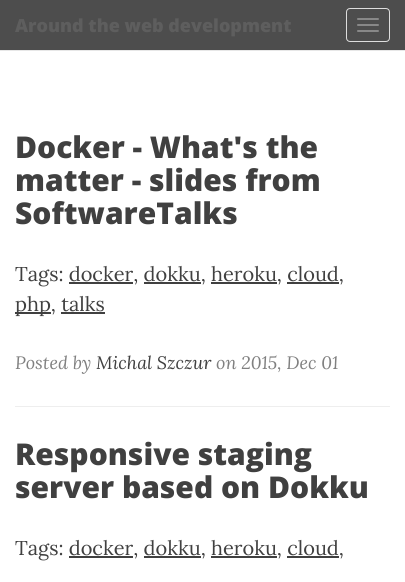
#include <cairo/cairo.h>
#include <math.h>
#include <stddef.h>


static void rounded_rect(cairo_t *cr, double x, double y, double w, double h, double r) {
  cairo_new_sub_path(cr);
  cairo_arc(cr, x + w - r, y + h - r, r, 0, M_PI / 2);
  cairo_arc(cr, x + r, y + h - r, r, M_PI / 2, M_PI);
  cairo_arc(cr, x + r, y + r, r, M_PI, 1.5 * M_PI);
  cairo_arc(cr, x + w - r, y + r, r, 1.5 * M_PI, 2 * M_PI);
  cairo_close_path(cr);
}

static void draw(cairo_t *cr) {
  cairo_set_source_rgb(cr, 1, 1, 1);
  cairo_paint(cr);
  cairo_set_source_rgb(cr, 77 / 255.0, 77 / 255.0, 77 / 255.0);
  cairo_rectangle(cr, 0, 0, 405, 50);
  cairo_fill(cr);
  cairo_set_source_rgb(cr, 231 / 255.0, 231 / 255.0, 231 / 255.0);
  cairo_rectangle(cr, 0, 50, 405, 1);
  cairo_fill(cr);
  rounded_rect(cr, 346.5, 8.5, 43, 33, 3.5);
  cairo_set_source_rgb(cr, 221 / 255.0, 221 / 255.0, 221 / 255.0);
  cairo_set_line_width(cr, 1);
  cairo_stroke(cr);
  cairo_set_source_rgb(cr, 136 / 255.0, 136 / 255.0, 136 / 255.0);
  rounded_rect(cr, 357, 18, 22, 2, 1);
  cairo_fill(cr);
  rounded_rect(cr, 357, 24, 22, 2, 1);
  cairo_fill(cr);
  rounded_rect(cr, 357, 30, 22, 2, 1);
  cairo_fill(cr);
  cairo_set_source_rgb(cr, 64 / 255.0, 64 / 255.0, 64 / 255.0);
  cairo_rectangle(cr, 69, 282, 64, 2);
  cairo_fill(cr);
  cairo_rectangle(cr, 144, 282, 57, 2);
  cairo_fill(cr);
  cairo_rectangle(cr, 211, 282, 66, 2);
  cairo_fill(cr);
  cairo_rectangle(cr, 287, 282, 52, 2);
  cairo_fill(cr);
  cairo_rectangle(cr, 15, 312, 36, 2);
  cairo_fill(cr);
  cairo_rectangle(cr, 61, 312, 44, 2);
  cairo_fill(cr);
  cairo_set_source_rgb(cr, 238 / 255.0, 238 / 255.0, 238 / 255.0);
  cairo_rectangle(cr, 15, 406, 375, 1);
  cairo_fill(cr);
  cairo_set_source_rgb(cr, 64 / 255.0, 64 / 255.0, 64 / 255.0);
  cairo_rectangle(cr, 69, 556, 64, 2);
  cairo_fill(cr);
  cairo_rectangle(cr, 144, 556, 57, 2);
  cairo_fill(cr);
  cairo_rectangle(cr, 211, 556, 66, 2);
  cairo_fill(cr);
  cairo_rectangle(cr, 287, 556, 52, 2);
  cairo_fill(cr);
  cairo_select_font_face(cr, "Open Sans ExtraBold", CAIRO_FONT_SLANT_NORMAL, CAIRO_FONT_WEIGHT_NORMAL);
  cairo_set_font_size(cr, 18);
  cairo_set_source_rgb(cr, 94 / 255.0, 94 / 255.0, 94 / 255.0);
  cairo_move_to(cr, 15, 32);
  cairo_show_text(cr, "Around the web development");
  cairo_set_font_size(cr, 30);
  cairo_set_source_rgb(cr, 64 / 255.0, 64 / 255.0, 64 / 255.0);
  cairo_move_to(cr, 15, 158);
  cairo_show_text(cr, "Docker - What's the");
  cairo_move_to(cr, 15, 191);
  cairo_show_text(cr, "matter - slides from");
  cairo_move_to(cr, 15, 224);
  cairo_show_text(cr, "SoftwareTalks");
  cairo_select_font_face(cr, "Lora", CAIRO_FONT_SLANT_NORMAL, CAIRO_FONT_WEIGHT_NORMAL);
  cairo_set_font_size(cr, 20);
  cairo_move_to(cr, 15, 281);
  cairo_show_text(cr, "Tags: docker, dokku, heroku, cloud,");
  cairo_move_to(cr, 15, 311);
  cairo_show_text(cr, "php, talks");
  cairo_select_font_face(cr, "Lora", CAIRO_FONT_SLANT_ITALIC, CAIRO_FONT_WEIGHT_NORMAL);
  cairo_set_font_size(cr, 18);
  cairo_set_source_rgb(cr, 128 / 255.0, 128 / 255.0, 128 / 255.0);
  cairo_move_to(cr, 15, 369);
  cairo_show_text(cr, "Posted by");
  cairo_set_source_rgb(cr, 64 / 255.0, 64 / 255.0, 64 / 255.0);
  cairo_move_to(cr, 96, 369);
  cairo_show_text(cr, "Michal Szczur");
  cairo_set_source_rgb(cr, 128 / 255.0, 128 / 255.0, 128 / 255.0);
  cairo_move_to(cr, 216, 369);
  cairo_show_text(cr, "on 2015, Dec 01");
  cairo_select_font_face(cr, "Open Sans ExtraBold", CAIRO_FONT_SLANT_NORMAL, CAIRO_FONT_WEIGHT_NORMAL);
  cairo_set_font_size(cr, 30);
  cairo_set_source_rgb(cr, 64 / 255.0, 64 / 255.0, 64 / 255.0);
  cairo_move_to(cr, 15, 465);
  cairo_show_text(cr, "Responsive staging");
  cairo_move_to(cr, 15, 498);
  cairo_show_text(cr, "server based on Dokku");
  cairo_select_font_face(cr, "Lora", CAIRO_FONT_SLANT_NORMAL, CAIRO_FONT_WEIGHT_NORMAL);
  cairo_set_font_size(cr, 20);
  cairo_move_to(cr, 15, 555);
  cairo_show_text(cr, "Tags: docker, dokku, heroku, cloud,");
}

int main(void) {
  cairo_surface_t *surface = cairo_image_surface_create(CAIRO_FORMAT_RGB24, 405, 582);
  cairo_t *cr = cairo_create(surface);
  cairo_font_options_t *options = cairo_font_options_create();
  cairo_font_options_set_hint_metrics(options, CAIRO_HINT_METRICS_OFF);
  cairo_font_options_set_hint_style(options, CAIRO_HINT_STYLE_NONE);
  cairo_set_font_options(cr, options);
  cairo_set_miter_limit(cr, 4);
  draw(cr);
  cairo_surface_write_to_png(surface, "out.png");
  cairo_font_options_destroy(options);
  cairo_destroy(cr);
  cairo_surface_destroy(surface);
  return 0;
}
